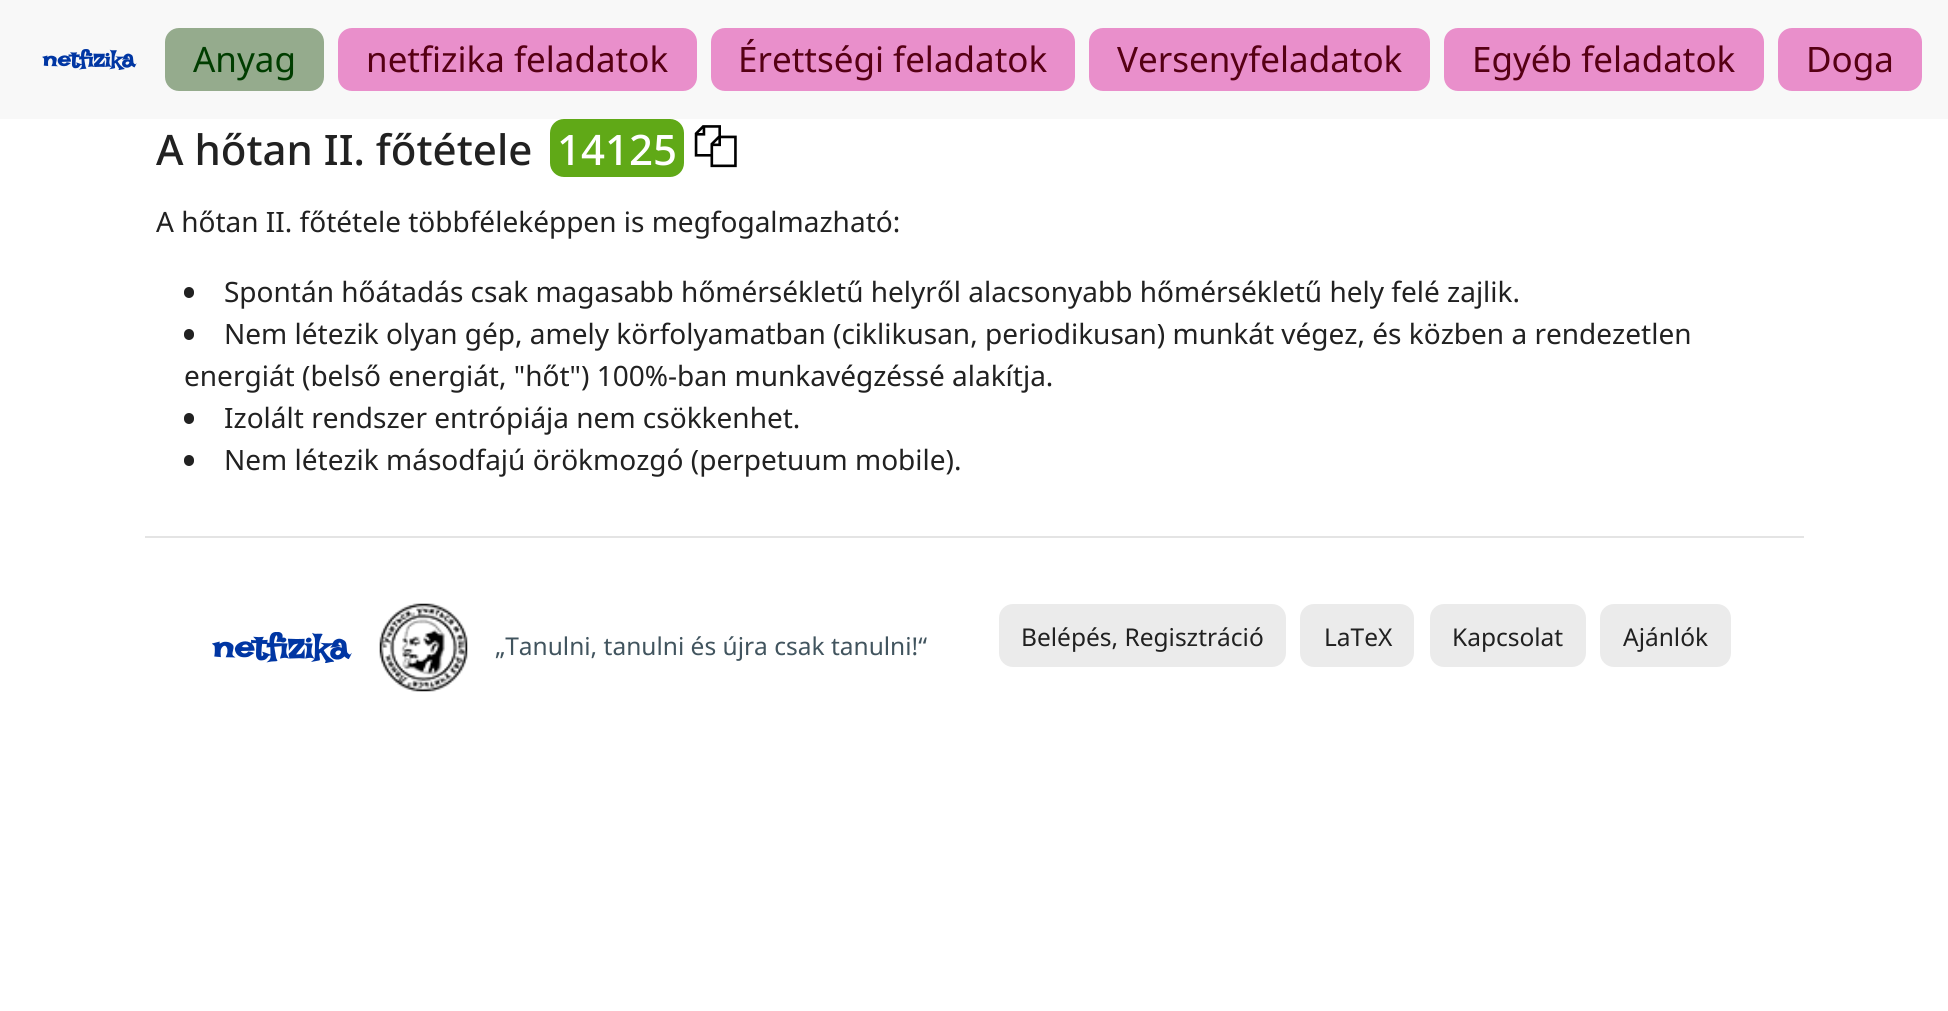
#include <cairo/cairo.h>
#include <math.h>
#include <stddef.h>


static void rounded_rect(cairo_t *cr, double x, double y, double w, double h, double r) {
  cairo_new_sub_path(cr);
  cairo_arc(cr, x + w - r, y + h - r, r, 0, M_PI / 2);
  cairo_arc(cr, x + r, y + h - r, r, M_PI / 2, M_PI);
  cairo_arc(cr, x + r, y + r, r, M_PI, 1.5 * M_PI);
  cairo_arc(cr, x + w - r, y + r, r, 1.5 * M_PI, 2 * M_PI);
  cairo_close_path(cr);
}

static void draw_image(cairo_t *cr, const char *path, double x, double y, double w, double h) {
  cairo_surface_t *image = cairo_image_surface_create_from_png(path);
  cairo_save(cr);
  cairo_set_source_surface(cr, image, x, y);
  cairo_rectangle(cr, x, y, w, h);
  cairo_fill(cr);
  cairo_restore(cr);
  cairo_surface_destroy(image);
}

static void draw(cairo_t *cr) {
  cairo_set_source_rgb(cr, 1, 1, 1);
  cairo_paint(cr);
  cairo_set_source_rgb(cr, 248 / 255.0, 248 / 255.0, 248 / 255.0);
  cairo_rectangle(cr, 0, 0, 1948, 119);
  cairo_fill(cr);
  draw_image(cr, "images/1.png", 42, 49, 95, 21);
  cairo_set_source_rgb(cr, 149 / 255.0, 171 / 255.0, 141 / 255.0);
  rounded_rect(cr, 165, 28, 159, 63, 14);
  cairo_fill(cr);
  cairo_set_source_rgb(cr, 233 / 255.0, 143 / 255.0, 203 / 255.0);
  rounded_rect(cr, 338, 28, 359, 63, 14);
  cairo_fill(cr);
  rounded_rect(cr, 711, 28, 364, 63, 14);
  cairo_fill(cr);
  rounded_rect(cr, 1089, 28, 341, 63, 14);
  cairo_fill(cr);
  rounded_rect(cr, 1444, 28, 320, 63, 14);
  cairo_fill(cr);
  rounded_rect(cr, 1778, 28, 144, 63, 14);
  cairo_fill(cr);
  cairo_set_source_rgb(cr, 96 / 255.0, 169 / 255.0, 23 / 255.0);
  rounded_rect(cr, 550, 119, 134, 58, 14);
  cairo_fill(cr);
  draw_image(cr, "images/2.png", 694, 125, 43, 43);
  cairo_set_source_rgb(cr, 33 / 255.0, 33 / 255.0, 33 / 255.0);
  rounded_rect(cr, 184, 287, 10, 11, 5);
  cairo_fill(cr);
  rounded_rect(cr, 184, 329, 10, 11, 5);
  cairo_fill(cr);
  rounded_rect(cr, 184, 413, 10, 11, 5);
  cairo_fill(cr);
  rounded_rect(cr, 184, 455, 10, 11, 5);
  cairo_fill(cr);
  cairo_set_source_rgb(cr, 228 / 255.0, 228 / 255.0, 228 / 255.0);
  cairo_rectangle(cr, 145, 536, 1659, 2);
  cairo_fill(cr);
  draw_image(cr, "images/3.png", 212, 632, 140, 31);
  draw_image(cr, "images/4.png", 379, 603, 89, 89);
  cairo_set_source_rgb(cr, 235 / 255.0, 235 / 255.0, 235 / 255.0);
  rounded_rect(cr, 999, 604, 287, 63, 14);
  cairo_fill(cr);
  rounded_rect(cr, 1300, 604, 114, 63, 14);
  cairo_fill(cr);
  rounded_rect(cr, 1430, 604, 156, 63, 14);
  cairo_fill(cr);
  rounded_rect(cr, 1600, 604, 131, 63, 14);
  cairo_fill(cr);
  cairo_select_font_face(cr, "Noto Sans", CAIRO_FONT_SLANT_NORMAL, CAIRO_FONT_WEIGHT_NORMAL);
  cairo_set_font_size(cr, 35);
  cairo_set_source_rgb(cr, 0, 61 / 255.0, 0);
  cairo_move_to(cr, 193, 72);
  cairo_show_text(cr, "Anyag");
  cairo_set_source_rgb(cr, 86 / 255.0, 0, 20 / 255.0);
  cairo_move_to(cr, 366, 72);
  cairo_show_text(cr, "netfizika feladatok");
  cairo_move_to(cr, 738, 72);
  cairo_show_text(cr, "Érettségi feladatok");
  cairo_move_to(cr, 1117, 72);
  cairo_show_text(cr, "Versenyfeladatok");
  cairo_move_to(cr, 1472, 72);
  cairo_show_text(cr, "Egyéb feladatok");
  cairo_move_to(cr, 1806, 72);
  cairo_show_text(cr, "Doga");
  cairo_select_font_face(cr, "Noto Sans Medium", CAIRO_FONT_SLANT_NORMAL, CAIRO_FONT_WEIGHT_NORMAL);
  cairo_set_font_size(cr, 42);
  cairo_set_source_rgb(cr, 33 / 255.0, 33 / 255.0, 33 / 255.0);
  cairo_move_to(cr, 156, 165);
  cairo_show_text(cr, "A hőtan II. főtétele");
  cairo_set_source_rgb(cr, 1, 1, 1);
  cairo_move_to(cr, 557, 165);
  cairo_show_text(cr, "14125");
  cairo_select_font_face(cr, "Noto Sans", CAIRO_FONT_SLANT_NORMAL, CAIRO_FONT_WEIGHT_NORMAL);
  cairo_set_font_size(cr, 28);
  cairo_set_source_rgb(cr, 33 / 255.0, 33 / 255.0, 33 / 255.0);
  cairo_move_to(cr, 156, 232);
  cairo_show_text(cr, "A hőtan II. főtétele többféleképpen is megfogalmazható:");
  cairo_move_to(cr, 224, 302);
  cairo_show_text(cr, "Spontán hőátadás csak magasabb hőmérsékletű helyről alacsonyabb hőmérsékletű hely felé zajlik.");
  cairo_move_to(cr, 224, 344);
  cairo_show_text(cr, "Nem létezik olyan gép, amely körfolyamatban (ciklikusan, periodikusan) munkát végez, és közben a rendezetlen");
  cairo_move_to(cr, 184, 386);
  cairo_show_text(cr, "energiát (belső energiát, \"hőt\") 100%-ban munkavégzéssé alakítja.");
  cairo_move_to(cr, 224, 428);
  cairo_show_text(cr, "Izolált rendszer entrópiája nem csökkenhet.");
  cairo_move_to(cr, 224, 470);
  cairo_show_text(cr, "Nem létezik másodfajú örökmozgó (perpetuum mobile).");
  cairo_set_font_size(cr, 24.5);
  cairo_set_source_rgb(cr, 65 / 255.0, 84 / 255.0, 94 / 255.0);
  cairo_move_to(cr, 495, 655);
  cairo_show_text(cr, "„Tanulni, tanulni és újra csak tanulni!“");
  cairo_set_source_rgb(cr, 33 / 255.0, 33 / 255.0, 33 / 255.0);
  cairo_move_to(cr, 1021, 646);
  cairo_show_text(cr, "Belépés, Regisztráció");
  cairo_move_to(cr, 1324, 646);
  cairo_show_text(cr, "LaTeX");
  cairo_move_to(cr, 1452, 646);
  cairo_show_text(cr, "Kapcsolat");
  cairo_move_to(cr, 1623, 646);
  cairo_show_text(cr, "Ajánlók");
}

int main(void) {
  cairo_surface_t *surface = cairo_image_surface_create(CAIRO_FORMAT_RGB24, 1948, 1011);
  cairo_t *cr = cairo_create(surface);
  cairo_font_options_t *options = cairo_font_options_create();
  cairo_font_options_set_hint_metrics(options, CAIRO_HINT_METRICS_OFF);
  cairo_font_options_set_hint_style(options, CAIRO_HINT_STYLE_NONE);
  cairo_set_font_options(cr, options);
  cairo_set_miter_limit(cr, 4);
  draw(cr);
  cairo_surface_write_to_png(surface, "out.png");
  cairo_font_options_destroy(options);
  cairo_destroy(cr);
  cairo_surface_destroy(surface);
  return 0;
}
